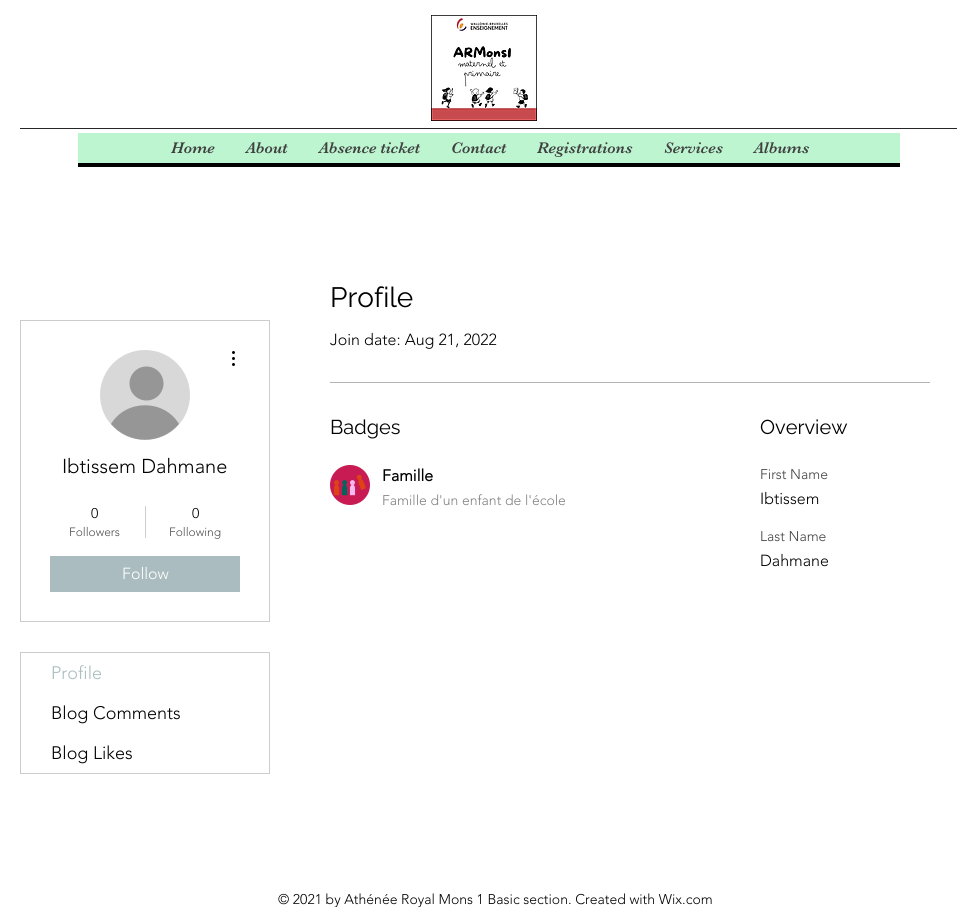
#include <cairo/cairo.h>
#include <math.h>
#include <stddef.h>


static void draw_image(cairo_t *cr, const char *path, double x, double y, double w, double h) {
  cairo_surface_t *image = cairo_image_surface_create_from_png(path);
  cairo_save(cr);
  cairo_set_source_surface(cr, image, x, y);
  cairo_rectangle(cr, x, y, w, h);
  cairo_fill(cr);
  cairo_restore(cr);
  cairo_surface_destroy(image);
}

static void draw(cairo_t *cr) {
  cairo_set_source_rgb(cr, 1, 1, 1);
  cairo_paint(cr);
  draw_image(cr, "images/1.png", 431, 15, 106, 106);
  cairo_set_source_rgb(cr, 38 / 255.0, 38 / 255.0, 38 / 255.0);
  cairo_rectangle(cr, 20, 128, 937, 1);
  cairo_fill(cr);
  cairo_set_source_rgb(cr, 0, 0, 0);
  cairo_rectangle(cr, 78, 163, 822, 4);
  cairo_fill(cr);
  cairo_set_source_rgb(cr, 188 / 255.0, 245 / 255.0, 208 / 255.0);
  cairo_rectangle(cr, 78, 133, 822, 30);
  cairo_fill(cr);
  cairo_set_source_rgb(cr, 179 / 255.0, 179 / 255.0, 179 / 255.0);
  cairo_rectangle(cr, 330, 382, 600, 1);
  cairo_fill(cr);
  cairo_set_source_rgb(cr, 200 / 255.0, 27 / 255.0, 83 / 255.0);
  cairo_arc(cr, 350, 485, 20, 0, 2 * M_PI);
  cairo_fill(cr);
  draw_image(cr, "images/2.png", 334, 474, 32, 22);
  cairo_rectangle(cr, 20.5, 320.5, 249, 301);
  cairo_set_source_rgb(cr, 204 / 255.0, 204 / 255.0, 204 / 255.0);
  cairo_set_line_width(cr, 1);
  cairo_stroke(cr);
  cairo_set_source_rgb(cr, 216 / 255.0, 216 / 255.0, 216 / 255.0);
  cairo_arc(cr, 145, 395, 45, 0, 2 * M_PI);
  cairo_fill(cr);
  cairo_set_source_rgb(cr, 150 / 255.0, 150 / 255.0, 150 / 255.0);
  cairo_arc(cr, 146.5, 383.5, 17, 0, 2 * M_PI);
  cairo_fill(cr);
  cairo_new_path(cr);
  cairo_move_to(cr, 179, 424);
  cairo_curve_to(cr, 161, 445, 129, 445, 111, 424);
  cairo_curve_to(cr, 126, 399, 164, 399, 179, 424);
  cairo_close_path(cr);
  cairo_fill(cr);
  draw_image(cr, "images/3.png", 232, 351, 3, 15);
  cairo_set_source_rgb(cr, 204 / 255.0, 204 / 255.0, 204 / 255.0);
  cairo_rectangle(cr, 145, 506, 1, 32);
  cairo_fill(cr);
  cairo_set_source_rgb(cr, 170 / 255.0, 188 / 255.0, 191 / 255.0);
  cairo_rectangle(cr, 50, 556, 190, 36);
  cairo_fill(cr);
  cairo_rectangle(cr, 20.5, 652.5, 249, 121);
  cairo_set_source_rgb(cr, 204 / 255.0, 204 / 255.0, 204 / 255.0);
  cairo_stroke(cr);
  cairo_select_font_face(cr, "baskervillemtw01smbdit", CAIRO_FONT_SLANT_NORMAL, CAIRO_FONT_WEIGHT_NORMAL);
  cairo_set_font_size(cr, 16);
  cairo_set_source_rgb(cr, 64 / 255.0, 64 / 255.0, 64 / 255.0);
  cairo_move_to(cr, 171, 153);
  cairo_show_text(cr, "Home");
  cairo_move_to(cr, 246, 153);
  cairo_show_text(cr, "About");
  cairo_move_to(cr, 319, 153);
  cairo_show_text(cr, "Absence ticket");
  cairo_move_to(cr, 451, 153);
  cairo_show_text(cr, "Contact");
  cairo_move_to(cr, 537, 153);
  cairo_show_text(cr, "Registrations");
  cairo_move_to(cr, 664, 153);
  cairo_show_text(cr, "Services");
  cairo_move_to(cr, 754, 153);
  cairo_show_text(cr, "Albums");
  cairo_select_font_face(cr, "Raleway", CAIRO_FONT_SLANT_NORMAL, CAIRO_FONT_WEIGHT_NORMAL);
  cairo_set_font_size(cr, 28);
  cairo_set_source_rgb(cr, 0, 0, 0);
  cairo_move_to(cr, 330, 307);
  cairo_show_text(cr, "Profile");
  cairo_select_font_face(cr, "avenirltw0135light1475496 Light", CAIRO_FONT_SLANT_NORMAL, CAIRO_FONT_WEIGHT_NORMAL);
  cairo_set_font_size(cr, 16);
  cairo_move_to(cr, 330, 345);
  cairo_show_text(cr, "Join date: Aug 21, 2022");
  cairo_select_font_face(cr, "Raleway", CAIRO_FONT_SLANT_NORMAL, CAIRO_FONT_WEIGHT_NORMAL);
  cairo_set_font_size(cr, 20);
  cairo_move_to(cr, 330, 434);
  cairo_show_text(cr, "Badges");
  cairo_select_font_face(cr, "avenirltw0135light1475496", CAIRO_FONT_SLANT_NORMAL, CAIRO_FONT_WEIGHT_BOLD);
  cairo_set_font_size(cr, 16);
  cairo_move_to(cr, 382, 481);
  cairo_show_text(cr, "Famille");
  cairo_select_font_face(cr, "avenirltw0135light1475496 Light", CAIRO_FONT_SLANT_NORMAL, CAIRO_FONT_WEIGHT_NORMAL);
  cairo_set_font_size(cr, 14);
  cairo_set_source_rgb(cr, 128 / 255.0, 128 / 255.0, 128 / 255.0);
  cairo_move_to(cr, 382, 505);
  cairo_show_text(cr, "Famille d'un enfant de l'école");
  cairo_select_font_face(cr, "Raleway", CAIRO_FONT_SLANT_NORMAL, CAIRO_FONT_WEIGHT_NORMAL);
  cairo_set_font_size(cr, 20);
  cairo_set_source_rgb(cr, 0, 0, 0);
  cairo_move_to(cr, 760, 434);
  cairo_show_text(cr, "Overview");
  cairo_select_font_face(cr, "avenirltw0135light1475496 Light", CAIRO_FONT_SLANT_NORMAL, CAIRO_FONT_WEIGHT_NORMAL);
  cairo_set_font_size(cr, 14);
  cairo_set_source_rgb(cr, 64 / 255.0, 64 / 255.0, 64 / 255.0);
  cairo_move_to(cr, 760, 479);
  cairo_show_text(cr, "First Name");
  cairo_set_font_size(cr, 16);
  cairo_set_source_rgb(cr, 0, 0, 0);
  cairo_move_to(cr, 760, 504);
  cairo_show_text(cr, "Ibtissem");
  cairo_set_font_size(cr, 14);
  cairo_set_source_rgb(cr, 64 / 255.0, 64 / 255.0, 64 / 255.0);
  cairo_move_to(cr, 760, 541);
  cairo_show_text(cr, "Last Name");
  cairo_set_font_size(cr, 16);
  cairo_set_source_rgb(cr, 0, 0, 0);
  cairo_move_to(cr, 760, 566);
  cairo_show_text(cr, "Dahmane");
  cairo_set_font_size(cr, 20);
  cairo_move_to(cr, 62, 473);
  cairo_show_text(cr, "Ibtissem Dahmane");
  cairo_set_font_size(cr, 14);
  cairo_move_to(cr, 91, 518);
  cairo_show_text(cr, "0");
  cairo_set_font_size(cr, 12);
  cairo_set_source_rgb(cr, 77 / 255.0, 77 / 255.0, 77 / 255.0);
  cairo_move_to(cr, 69, 536);
  cairo_show_text(cr, "Followers");
  cairo_set_font_size(cr, 14);
  cairo_set_source_rgb(cr, 0, 0, 0);
  cairo_move_to(cr, 192, 518);
  cairo_show_text(cr, "0");
  cairo_set_font_size(cr, 12);
  cairo_set_source_rgb(cr, 77 / 255.0, 77 / 255.0, 77 / 255.0);
  cairo_move_to(cr, 169, 536);
  cairo_show_text(cr, "Following");
  cairo_set_font_size(cr, 16);
  cairo_set_source_rgb(cr, 1, 1, 1);
  cairo_move_to(cr, 122, 579);
  cairo_show_text(cr, "Follow");
  cairo_set_font_size(cr, 18);
  cairo_set_source_rgb(cr, 170 / 255.0, 188 / 255.0, 191 / 255.0);
  cairo_move_to(cr, 51, 679);
  cairo_show_text(cr, "Profile");
  cairo_set_source_rgb(cr, 0, 0, 0);
  cairo_move_to(cr, 51, 719);
  cairo_show_text(cr, "Blog Comments");
  cairo_move_to(cr, 51, 759);
  cairo_show_text(cr, "Blog Likes");
  cairo_set_font_size(cr, 14);
  cairo_move_to(cr, 278, 904);
  cairo_show_text(cr, "© 2021 by Athénée Royal Mons 1 Basic section. Created with Wix.com");
}

int main(void) {
  cairo_surface_t *surface = cairo_image_surface_create(CAIRO_FORMAT_RGB24, 957, 907);
  cairo_t *cr = cairo_create(surface);
  cairo_font_options_t *options = cairo_font_options_create();
  cairo_font_options_set_hint_metrics(options, CAIRO_HINT_METRICS_OFF);
  cairo_font_options_set_hint_style(options, CAIRO_HINT_STYLE_NONE);
  cairo_set_font_options(cr, options);
  cairo_set_miter_limit(cr, 4);
  draw(cr);
  cairo_surface_write_to_png(surface, "out.png");
  cairo_font_options_destroy(options);
  cairo_destroy(cr);
  cairo_surface_destroy(surface);
  return 0;
}
